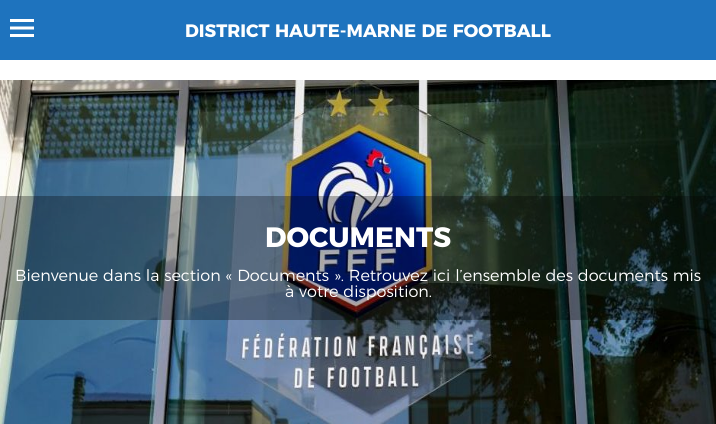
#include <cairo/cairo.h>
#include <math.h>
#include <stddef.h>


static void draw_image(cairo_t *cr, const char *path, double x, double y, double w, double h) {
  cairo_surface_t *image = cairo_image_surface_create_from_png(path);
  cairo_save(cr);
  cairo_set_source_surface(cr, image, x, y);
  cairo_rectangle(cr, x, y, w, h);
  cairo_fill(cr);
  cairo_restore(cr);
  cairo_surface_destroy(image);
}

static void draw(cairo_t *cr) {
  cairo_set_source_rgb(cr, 1, 1, 1);
  cairo_paint(cr);
  cairo_set_source_rgb(cr, 30 / 255.0, 115 / 255.0, 190 / 255.0);
  cairo_rectangle(cr, 0, 0, 716, 60);
  cairo_fill(cr);
  draw_image(cr, "images/1.png", 10, 19, 24, 18);
  draw_image(cr, "images/2.png", 0, 80, 716, 344);
  cairo_set_source_rgba(cr, 0, 0, 0, 0.3);
  cairo_rectangle(cr, 0, 196, 716, 124);
  cairo_fill(cr);
  cairo_select_font_face(cr, "Montserrat", CAIRO_FONT_SLANT_NORMAL, CAIRO_FONT_WEIGHT_BOLD);
  cairo_set_font_size(cr, 18);
  cairo_set_source_rgb(cr, 1, 1, 1);
  cairo_move_to(cr, 185, 37);
  cairo_show_text(cr, "DISTRICT HAUTE-MARNE DE FOOTBALL");
  cairo_set_font_size(cr, 28);
  cairo_move_to(cr, 265, 247);
  cairo_show_text(cr, "DOCUMENTS");
  cairo_select_font_face(cr, "Montserrat Light", CAIRO_FONT_SLANT_NORMAL, CAIRO_FONT_WEIGHT_NORMAL);
  cairo_set_font_size(cr, 16);
  cairo_move_to(cr, 15, 281);
  cairo_show_text(cr, "Bienvenue dans la section « Documents ». Retrouvez ici l’ensemble des documents mis");
  cairo_move_to(cr, 285, 297);
  cairo_show_text(cr, "à votre disposition.");
}

int main(void) {
  cairo_surface_t *surface = cairo_image_surface_create(CAIRO_FORMAT_RGB24, 716, 424);
  cairo_t *cr = cairo_create(surface);
  cairo_font_options_t *options = cairo_font_options_create();
  cairo_font_options_set_hint_metrics(options, CAIRO_HINT_METRICS_OFF);
  cairo_font_options_set_hint_style(options, CAIRO_HINT_STYLE_NONE);
  cairo_set_font_options(cr, options);
  cairo_set_miter_limit(cr, 4);
  draw(cr);
  cairo_surface_write_to_png(surface, "out.png");
  cairo_font_options_destroy(options);
  cairo_destroy(cr);
  cairo_surface_destroy(surface);
  return 0;
}
